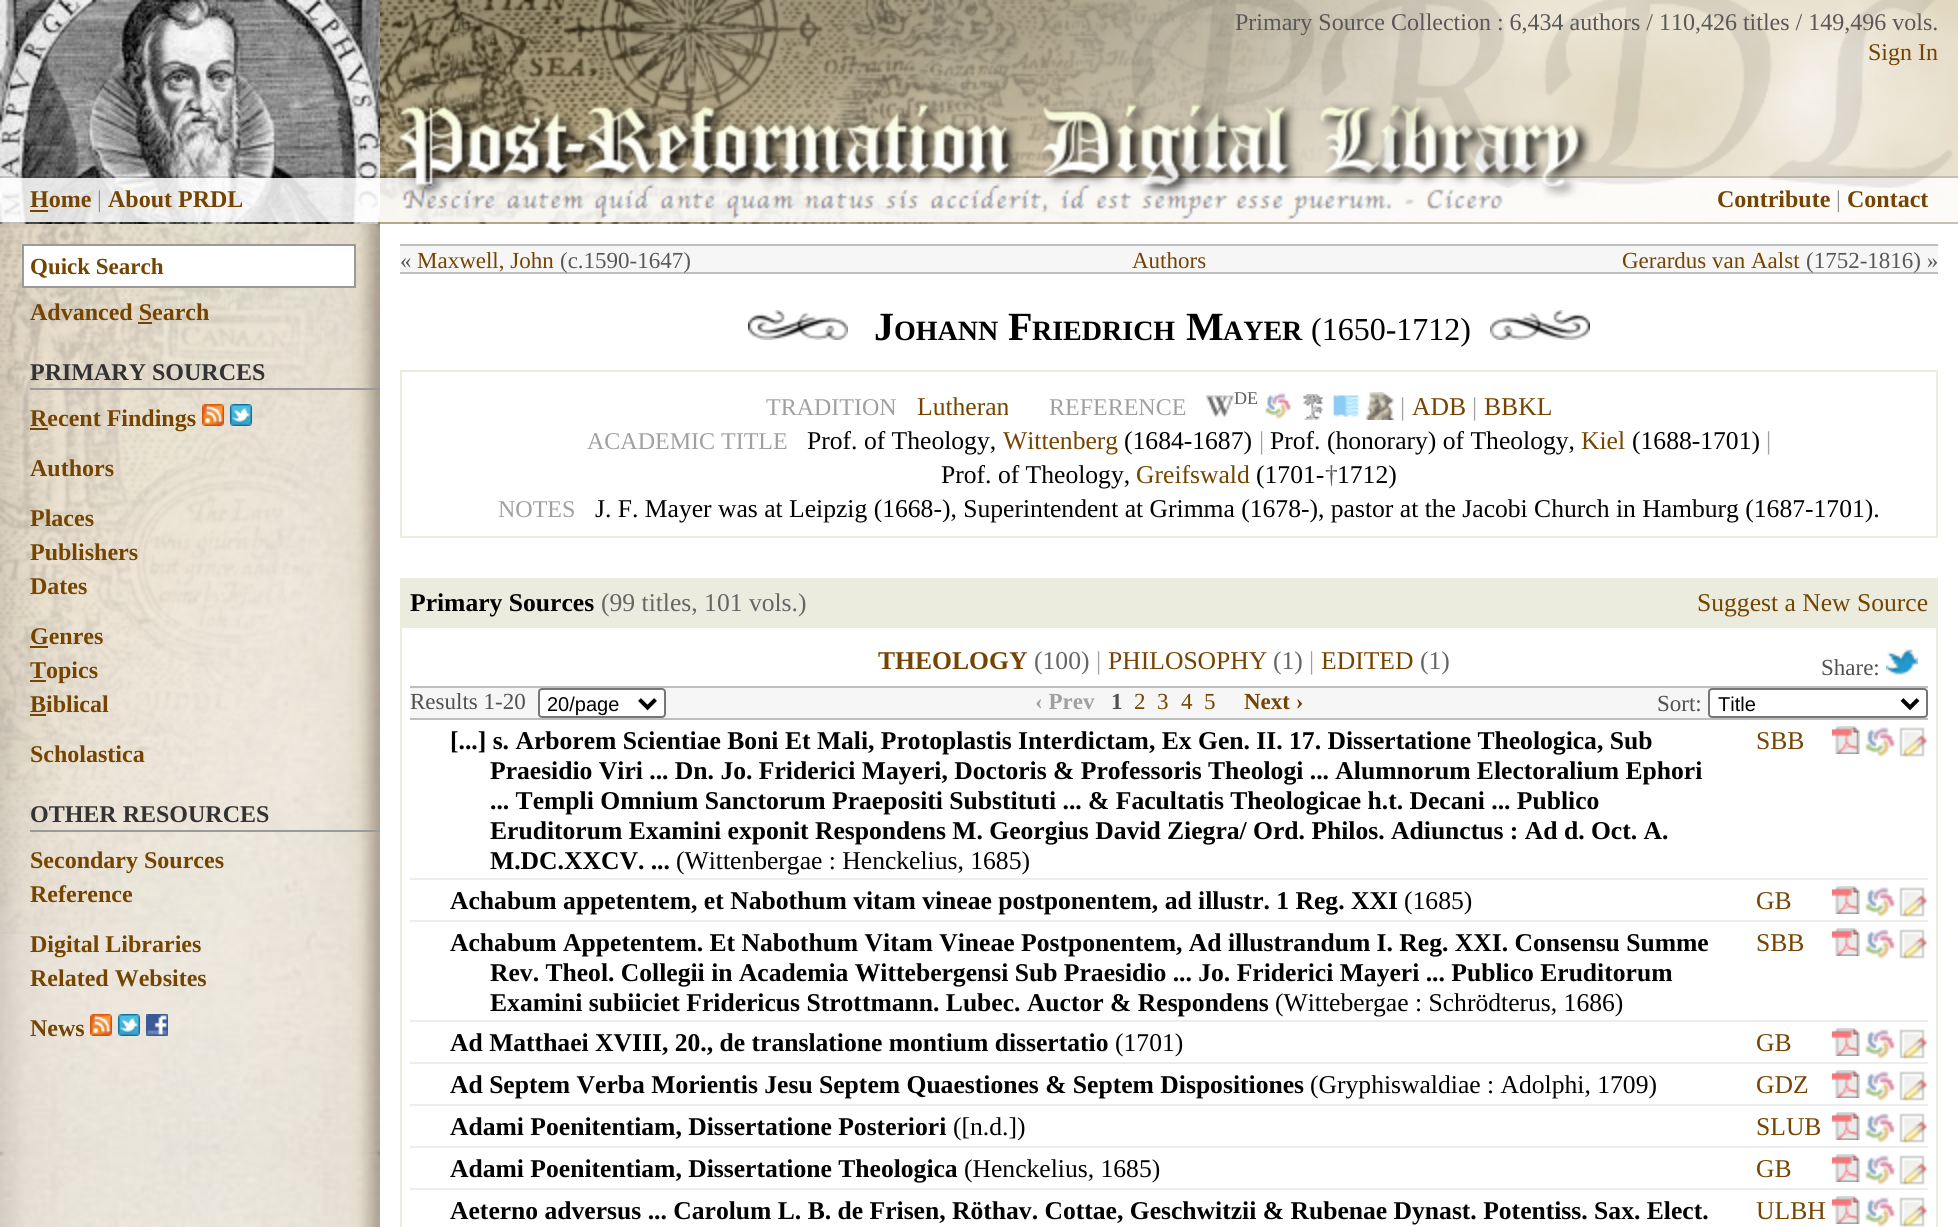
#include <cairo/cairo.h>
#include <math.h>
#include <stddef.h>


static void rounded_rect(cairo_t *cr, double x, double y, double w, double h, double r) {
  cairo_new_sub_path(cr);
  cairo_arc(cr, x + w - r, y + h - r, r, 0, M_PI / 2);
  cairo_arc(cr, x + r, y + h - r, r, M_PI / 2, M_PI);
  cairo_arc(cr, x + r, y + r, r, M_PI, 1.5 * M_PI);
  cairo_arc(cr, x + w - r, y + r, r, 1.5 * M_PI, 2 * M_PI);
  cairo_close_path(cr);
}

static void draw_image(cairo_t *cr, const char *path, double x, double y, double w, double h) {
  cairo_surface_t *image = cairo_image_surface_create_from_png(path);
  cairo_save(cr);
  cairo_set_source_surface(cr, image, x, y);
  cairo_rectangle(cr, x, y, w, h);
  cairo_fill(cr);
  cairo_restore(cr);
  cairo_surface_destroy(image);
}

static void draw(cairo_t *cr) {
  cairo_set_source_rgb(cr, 1, 1, 1);
  cairo_paint(cr);
  draw_image(cr, "images/1.png", 0, 0, 380, 224);
  cairo_set_source_rgba(cr, 0, 0, 0, 0.15);
  cairo_rectangle(cr, 0, 176, 380, 2);
  cairo_fill(cr);
  cairo_set_source_rgba(cr, 1, 1, 1, 0.85);
  cairo_rectangle(cr, 0, 178, 380, 44);
  cairo_fill(cr);
  cairo_set_source_rgb(cr, 116 / 255.0, 68 / 255.0, 0);
  cairo_rectangle(cr, 30, 210, 18, 2);
  cairo_fill(cr);
  cairo_set_source_rgba(cr, 0, 0, 0, 0.15);
  cairo_rectangle(cr, 0, 222, 380, 2);
  cairo_fill(cr);
  draw_image(cr, "images/2.png", 380, 0, 1578, 224);
  cairo_rectangle(cr, 380, 176, 1578, 2);
  cairo_fill(cr);
  cairo_set_source_rgba(cr, 1, 1, 1, 0.85);
  cairo_rectangle(cr, 380, 178, 1578, 44);
  cairo_fill(cr);
  draw_image(cr, "images/4.png", 395, 101, 1198, 97);
  draw_image(cr, "images/5.png", 401, 183, 1102, 37);
  draw_image(cr, "images/3.png", 1130, 0, 823, 188);
  cairo_set_source_rgba(cr, 0, 0, 0, 0.15);
  cairo_rectangle(cr, 380, 222, 1578, 2);
  cairo_fill(cr);
  draw_image(cr, "images/6.png", 0, 224, 380, 1003);
  draw_image(cr, "images/7.png", 0, 224, 380, 710);
  cairo_set_source_rgb(cr, 1, 1, 1);
  cairo_rectangle(cr, 23, 245, 332, 42);
  cairo_fill_preserve(cr);
  cairo_set_source_rgb(cr, 154 / 255.0, 154 / 255.0, 154 / 255.0);
  cairo_stroke(cr);
  cairo_set_source_rgb(cr, 116 / 255.0, 68 / 255.0, 0);
  cairo_rectangle(cr, 138, 322, 14, 2);
  cairo_fill(cr);
  cairo_set_source_rgb(cr, 154 / 255.0, 154 / 255.0, 154 / 255.0);
  cairo_rectangle(cr, 30, 388, 350, 2);
  cairo_fill(cr);
  cairo_set_source_rgb(cr, 116 / 255.0, 68 / 255.0, 0);
  cairo_rectangle(cr, 30, 428, 18, 2);
  cairo_fill(cr);
  draw_image(cr, "images/8.png", 202, 404, 22, 22);
  draw_image(cr, "images/9.png", 230, 404, 22, 22);
  cairo_rectangle(cr, 30, 646, 18, 2);
  cairo_fill(cr);
  cairo_rectangle(cr, 30, 680, 16, 2);
  cairo_fill(cr);
  cairo_rectangle(cr, 30, 714, 16, 2);
  cairo_fill(cr);
  cairo_set_source_rgb(cr, 154 / 255.0, 154 / 255.0, 154 / 255.0);
  cairo_rectangle(cr, 30, 830, 350, 2);
  cairo_fill(cr);
  draw_image(cr, "images/10.png", 90, 1014, 22, 22);
  draw_image(cr, "images/11.png", 118, 1014, 22, 22);
  draw_image(cr, "images/12.png", 146, 1014, 22, 22);
  cairo_set_source_rgb(cr, 246 / 255.0, 246 / 255.0, 246 / 255.0);
  cairo_rectangle(cr, 400, 246, 1538, 26);
  cairo_fill(cr);
  cairo_set_source_rgb(cr, 190 / 255.0, 190 / 255.0, 190 / 255.0);
  cairo_rectangle(cr, 400, 244, 1538, 2);
  cairo_fill(cr);
  cairo_rectangle(cr, 400, 272, 1538, 2);
  cairo_fill(cr);
  draw_image(cr, "images/13.png", 748, 310, 100, 30);
  draw_image(cr, "images/14.png", 1490, 310, 100, 30);
  cairo_rectangle(cr, 401, 371, 1536, 166);
  cairo_set_source_rgb(cr, 235 / 255.0, 236 / 255.0, 221 / 255.0);
  cairo_stroke(cr);
  draw_image(cr, "images/15.png", 1206, 395, 28, 22);
  draw_image(cr, "images/16.png", 1265, 393, 26, 26);
  draw_image(cr, "images/17.png", 1303, 394, 21, 26);
  draw_image(cr, "images/18.png", 1332, 394, 27, 23);
  draw_image(cr, "images/19.png", 1366, 392, 28, 28);
  cairo_rectangle(cr, 400, 578, 1538, 649);
  cairo_fill(cr);
  cairo_set_source_rgb(cr, 1, 1, 1);
  cairo_rectangle(cr, 402, 628, 1534, 599);
  cairo_fill(cr);
  cairo_set_source_rgb(cr, 190 / 255.0, 190 / 255.0, 190 / 255.0);
  cairo_rectangle(cr, 410, 686, 1518, 2);
  cairo_fill(cr);
  draw_image(cr, "images/20.png", 1886, 649, 32, 26);
  cairo_set_source_rgb(cr, 246 / 255.0, 246 / 255.0, 246 / 255.0);
  cairo_rectangle(cr, 410, 688, 1518, 30);
  cairo_fill(cr);
  cairo_set_source_rgb(cr, 190 / 255.0, 190 / 255.0, 190 / 255.0);
  cairo_rectangle(cr, 410, 718, 1518, 2);
  cairo_fill(cr);
  cairo_set_source_rgb(cr, 1, 1, 1);
  rounded_rect(cr, 539, 689, 126, 28, 3);
  cairo_fill_preserve(cr);
  cairo_set_source_rgb(cr, 118 / 255.0, 118 / 255.0, 118 / 255.0);
  cairo_stroke(cr);
  cairo_new_path(cr);
  cairo_move_to(cr, 639.5, 699.5);
  cairo_line_to(cr, 647.5, 707.5);
  cairo_line_to(cr, 655.5, 699.5);
  cairo_set_source_rgb(cr, 0, 0, 0);
  cairo_set_line_width(cr, 4);
  cairo_stroke(cr);
  cairo_set_source_rgb(cr, 1, 1, 1);
  rounded_rect(cr, 1709, 689, 218, 28, 3);
  cairo_fill_preserve(cr);
  cairo_set_source_rgb(cr, 118 / 255.0, 118 / 255.0, 118 / 255.0);
  cairo_set_line_width(cr, 2);
  cairo_stroke(cr);
  cairo_new_path(cr);
  cairo_move_to(cr, 1902, 699.5);
  cairo_line_to(cr, 1910, 707.5);
  cairo_line_to(cr, 1918, 699.5);
  cairo_set_source_rgb(cr, 0, 0, 0);
  cairo_set_line_width(cr, 4);
  cairo_stroke(cr);
  cairo_set_source_rgb(cr, 237 / 255.0, 237 / 255.0, 237 / 255.0);
  cairo_rectangle(cr, 410, 878, 1518, 2);
  cairo_fill(cr);
  draw_image(cr, "images/21.png", 1832, 726, 28, 28);
  draw_image(cr, "images/22.png", 1865, 727, 30, 30);
  draw_image(cr, "images/23.png", 1899, 727, 29, 30);
  cairo_rectangle(cr, 410, 920, 1518, 2);
  cairo_fill(cr);
  draw_image(cr, "images/21.png", 1832, 886, 28, 28);
  draw_image(cr, "images/22.png", 1865, 887, 30, 30);
  draw_image(cr, "images/23.png", 1899, 887, 29, 30);
  cairo_rectangle(cr, 410, 1020, 1518, 2);
  cairo_fill(cr);
  draw_image(cr, "images/21.png", 1832, 928, 28, 28);
  draw_image(cr, "images/22.png", 1865, 929, 30, 30);
  draw_image(cr, "images/23.png", 1899, 929, 29, 30);
  cairo_rectangle(cr, 410, 1062, 1518, 2);
  cairo_fill(cr);
  draw_image(cr, "images/21.png", 1832, 1028, 28, 28);
  draw_image(cr, "images/22.png", 1865, 1029, 30, 30);
  draw_image(cr, "images/23.png", 1899, 1029, 29, 30);
  cairo_rectangle(cr, 410, 1104, 1518, 2);
  cairo_fill(cr);
  draw_image(cr, "images/21.png", 1832, 1070, 28, 28);
  draw_image(cr, "images/22.png", 1865, 1071, 30, 30);
  draw_image(cr, "images/23.png", 1899, 1071, 29, 30);
  cairo_rectangle(cr, 410, 1146, 1518, 2);
  cairo_fill(cr);
  draw_image(cr, "images/21.png", 1832, 1112, 28, 28);
  draw_image(cr, "images/22.png", 1865, 1113, 30, 30);
  draw_image(cr, "images/23.png", 1899, 1113, 29, 30);
  cairo_rectangle(cr, 410, 1188, 1518, 2);
  cairo_fill(cr);
  draw_image(cr, "images/21.png", 1832, 1154, 28, 28);
  draw_image(cr, "images/22.png", 1865, 1155, 30, 30);
  draw_image(cr, "images/23.png", 1899, 1155, 29, 30);
  draw_image(cr, "images/21.png", 1832, 1196, 28, 28);
  draw_image(cr, "images/22.png", 1865, 1197, 30, 30);
  draw_image(cr, "images/23.png", 1899, 1197, 29, 30);
  cairo_select_font_face(cr, "Liberation Serif", CAIRO_FONT_SLANT_NORMAL, CAIRO_FONT_WEIGHT_BOLD);
  cairo_set_font_size(cr, 24);
  cairo_set_source_rgb(cr, 116 / 255.0, 68 / 255.0, 0);
  cairo_move_to(cr, 30, 207);
  cairo_show_text(cr, "Home");
  cairo_select_font_face(cr, "Liberation Serif", CAIRO_FONT_SLANT_NORMAL, CAIRO_FONT_WEIGHT_NORMAL);
  cairo_set_source_rgb(cr, 143 / 255.0, 143 / 255.0, 143 / 255.0);
  cairo_move_to(cr, 97, 207);
  cairo_show_text(cr, "|");
  cairo_select_font_face(cr, "Liberation Serif", CAIRO_FONT_SLANT_NORMAL, CAIRO_FONT_WEIGHT_BOLD);
  cairo_set_source_rgb(cr, 116 / 255.0, 68 / 255.0, 0);
  cairo_move_to(cr, 108, 207);
  cairo_show_text(cr, "About PRDL");
  cairo_select_font_face(cr, "Liberation Serif", CAIRO_FONT_SLANT_NORMAL, CAIRO_FONT_WEIGHT_NORMAL);
  cairo_set_source_rgb(cr, 88 / 255.0, 88 / 255.0, 88 / 255.0);
  cairo_move_to(cr, 1235, 30);
  cairo_show_text(cr, "Primary Source Collection : 6,434 authors / 110,426 titles / 149,496 vols.");
  cairo_set_source_rgb(cr, 116 / 255.0, 68 / 255.0, 0);
  cairo_move_to(cr, 1868, 60);
  cairo_show_text(cr, "Sign In");
  cairo_select_font_face(cr, "Liberation Serif", CAIRO_FONT_SLANT_NORMAL, CAIRO_FONT_WEIGHT_BOLD);
  cairo_move_to(cr, 1717, 207);
  cairo_show_text(cr, "Contribute");
  cairo_select_font_face(cr, "Liberation Serif", CAIRO_FONT_SLANT_NORMAL, CAIRO_FONT_WEIGHT_NORMAL);
  cairo_set_source_rgb(cr, 143 / 255.0, 143 / 255.0, 143 / 255.0);
  cairo_move_to(cr, 1836, 207);
  cairo_show_text(cr, "|");
  cairo_select_font_face(cr, "Liberation Serif", CAIRO_FONT_SLANT_NORMAL, CAIRO_FONT_WEIGHT_BOLD);
  cairo_set_source_rgb(cr, 116 / 255.0, 68 / 255.0, 0);
  cairo_move_to(cr, 1847, 207);
  cairo_show_text(cr, "Contact");
  cairo_set_font_size(cr, 23);
  cairo_move_to(cr, 30, 274);
  cairo_show_text(cr, "Quick Search");
  cairo_set_font_size(cr, 24);
  cairo_move_to(cr, 30, 320);
  cairo_show_text(cr, "Advanced Search");
  cairo_set_source_rgb(cr, 51 / 255.0, 51 / 255.0, 51 / 255.0);
  cairo_move_to(cr, 30, 380);
  cairo_show_text(cr, "PRIMARY SOURCES");
  cairo_set_source_rgb(cr, 116 / 255.0, 68 / 255.0, 0);
  cairo_move_to(cr, 30, 426);
  cairo_show_text(cr, "Recent Findings");
  cairo_move_to(cr, 30, 476);
  cairo_show_text(cr, "Authors");
  cairo_move_to(cr, 30, 526);
  cairo_show_text(cr, "Places");
  cairo_move_to(cr, 30, 560);
  cairo_show_text(cr, "Publishers");
  cairo_move_to(cr, 30, 594);
  cairo_show_text(cr, "Dates");
  cairo_move_to(cr, 30, 644);
  cairo_show_text(cr, "Genres");
  cairo_move_to(cr, 30, 678);
  cairo_show_text(cr, "Topics");
  cairo_move_to(cr, 30, 712);
  cairo_show_text(cr, "Biblical");
  cairo_move_to(cr, 30, 762);
  cairo_show_text(cr, "Scholastica");
  cairo_set_source_rgb(cr, 51 / 255.0, 51 / 255.0, 51 / 255.0);
  cairo_move_to(cr, 30, 822);
  cairo_show_text(cr, "OTHER RESOURCES");
  cairo_set_source_rgb(cr, 116 / 255.0, 68 / 255.0, 0);
  cairo_move_to(cr, 30, 868);
  cairo_show_text(cr, "Secondary Sources");
  cairo_move_to(cr, 30, 902);
  cairo_show_text(cr, "Reference");
  cairo_move_to(cr, 30, 952);
  cairo_show_text(cr, "Digital Libraries");
  cairo_move_to(cr, 30, 986);
  cairo_show_text(cr, "Related Websites");
  cairo_move_to(cr, 30, 1036);
  cairo_show_text(cr, "News");
  cairo_select_font_face(cr, "Liberation Serif", CAIRO_FONT_SLANT_NORMAL, CAIRO_FONT_WEIGHT_NORMAL);
  cairo_set_font_size(cr, 23);
  cairo_set_source_rgb(cr, 88 / 255.0, 88 / 255.0, 88 / 255.0);
  cairo_move_to(cr, 400, 268);
  cairo_show_text(cr, "«");
  cairo_set_source_rgb(cr, 116 / 255.0, 68 / 255.0, 0);
  cairo_move_to(cr, 417, 268);
  cairo_show_text(cr, "Maxwell, John");
  cairo_set_source_rgb(cr, 88 / 255.0, 88 / 255.0, 88 / 255.0);
  cairo_move_to(cr, 560, 268);
  cairo_show_text(cr, "(c.1590-1647)");
  cairo_set_source_rgb(cr, 116 / 255.0, 68 / 255.0, 0);
  cairo_move_to(cr, 1132, 268);
  cairo_show_text(cr, "Authors");
  cairo_move_to(cr, 1622, 268);
  cairo_show_text(cr, "Gerardus van Aalst");
  cairo_set_source_rgb(cr, 88 / 255.0, 88 / 255.0, 88 / 255.0);
  cairo_move_to(cr, 1806, 268);
  cairo_show_text(cr, "(1752-1816) »");
  cairo_select_font_face(cr, "Liberation Serif", CAIRO_FONT_SLANT_NORMAL, CAIRO_FONT_WEIGHT_BOLD);
  cairo_set_font_size(cr, 40);
  cairo_set_source_rgb(cr, 0, 0, 0);
  cairo_move_to(cr, 874, 340);
  cairo_show_text(cr, "J");
  cairo_set_font_size(cr, 28);
  cairo_move_to(cr, 894, 340);
  cairo_show_text(cr, "OHANN");
  cairo_set_font_size(cr, 40);
  cairo_move_to(cr, 1008, 340);
  cairo_show_text(cr, "F");
  cairo_set_font_size(cr, 28);
  cairo_move_to(cr, 1032, 340);
  cairo_show_text(cr, "RIEDRICH");
  cairo_set_font_size(cr, 40);
  cairo_move_to(cr, 1186, 340);
  cairo_show_text(cr, "M");
  cairo_set_font_size(cr, 28);
  cairo_move_to(cr, 1223, 340);
  cairo_show_text(cr, "AYER");
  cairo_select_font_face(cr, "Liberation Serif", CAIRO_FONT_SLANT_NORMAL, CAIRO_FONT_WEIGHT_NORMAL);
  cairo_set_font_size(cr, 32);
  cairo_move_to(cr, 1311, 340);
  cairo_show_text(cr, "(1650-1712)");
  cairo_set_font_size(cr, 24);
  cairo_set_source_rgb(cr, 160 / 255.0, 160 / 255.0, 160 / 255.0);
  cairo_move_to(cr, 766, 415);
  cairo_show_text(cr, "TRADITION");
  cairo_set_font_size(cr, 25.6);
  cairo_set_source_rgb(cr, 116 / 255.0, 68 / 255.0, 0);
  cairo_move_to(cr, 917, 415);
  cairo_show_text(cr, "Lutheran");
  cairo_set_font_size(cr, 24);
  cairo_set_source_rgb(cr, 160 / 255.0, 160 / 255.0, 160 / 255.0);
  cairo_move_to(cr, 1049, 415);
  cairo_show_text(cr, "REFERENCE");
  cairo_set_source_rgb(cr, 1, 1, 1);
  cairo_rectangle(cr, 1008, 414, 1, 1);
  cairo_fill(cr);
  cairo_set_font_size(cr, 18);
  cairo_set_source_rgb(cr, 94 / 255.0, 94 / 255.0, 94 / 255.0);
  cairo_move_to(cr, 1234, 404);
  cairo_show_text(cr, "DE");
  cairo_set_font_size(cr, 25.6);
  cairo_set_source_rgb(cr, 160 / 255.0, 160 / 255.0, 160 / 255.0);
  cairo_move_to(cr, 1400, 415);
  cairo_show_text(cr, "|");
  cairo_set_source_rgb(cr, 116 / 255.0, 68 / 255.0, 0);
  cairo_move_to(cr, 1412, 415);
  cairo_show_text(cr, "ADB");
  cairo_set_source_rgb(cr, 160 / 255.0, 160 / 255.0, 160 / 255.0);
  cairo_move_to(cr, 1472, 415);
  cairo_show_text(cr, "|");
  cairo_set_source_rgb(cr, 116 / 255.0, 68 / 255.0, 0);
  cairo_move_to(cr, 1484, 415);
  cairo_show_text(cr, "BBKL");
  cairo_set_font_size(cr, 24);
  cairo_set_source_rgb(cr, 160 / 255.0, 160 / 255.0, 160 / 255.0);
  cairo_move_to(cr, 587, 449);
  cairo_show_text(cr, "ACADEMIC TITLE");
  cairo_set_font_size(cr, 25.6);
  cairo_set_source_rgb(cr, 0, 0, 0);
  cairo_move_to(cr, 807, 449);
  cairo_show_text(cr, "Prof. of Theology,");
  cairo_set_source_rgb(cr, 116 / 255.0, 68 / 255.0, 0);
  cairo_move_to(cr, 1003, 449);
  cairo_show_text(cr, "Wittenberg");
  cairo_set_source_rgb(cr, 0, 0, 0);
  cairo_move_to(cr, 1124, 449);
  cairo_show_text(cr, "(1684-1687)");
  cairo_set_source_rgb(cr, 160 / 255.0, 160 / 255.0, 160 / 255.0);
  cairo_move_to(cr, 1259, 449);
  cairo_show_text(cr, "|");
  cairo_set_source_rgb(cr, 0, 0, 0);
  cairo_move_to(cr, 1270, 449);
  cairo_show_text(cr, "Prof. (honorary) of Theology,");
  cairo_set_source_rgb(cr, 116 / 255.0, 68 / 255.0, 0);
  cairo_move_to(cr, 1581, 449);
  cairo_show_text(cr, "Kiel");
  cairo_set_source_rgb(cr, 0, 0, 0);
  cairo_move_to(cr, 1632, 449);
  cairo_show_text(cr, "(1688-1701)");
  cairo_set_source_rgb(cr, 160 / 255.0, 160 / 255.0, 160 / 255.0);
  cairo_move_to(cr, 1766, 449);
  cairo_show_text(cr, "|");
  cairo_set_source_rgb(cr, 0, 0, 0);
  cairo_move_to(cr, 941, 483);
  cairo_show_text(cr, "Prof. of Theology,");
  cairo_set_source_rgb(cr, 116 / 255.0, 68 / 255.0, 0);
  cairo_move_to(cr, 1136, 483);
  cairo_show_text(cr, "Greifswald");
  cairo_set_source_rgb(cr, 0, 0, 0);
  cairo_move_to(cr, 1256, 483);
  cairo_show_text(cr, "(1701-");
  cairo_set_source_rgb(cr, 88 / 255.0, 88 / 255.0, 88 / 255.0);
  cairo_move_to(cr, 1325, 483);
  cairo_show_text(cr, "†");
  cairo_set_source_rgb(cr, 0, 0, 0);
  cairo_move_to(cr, 1337, 483);
  cairo_show_text(cr, "1712)");
  cairo_set_font_size(cr, 24);
  cairo_set_source_rgb(cr, 160 / 255.0, 160 / 255.0, 160 / 255.0);
  cairo_move_to(cr, 498, 517);
  cairo_show_text(cr, "NOTES");
  cairo_set_font_size(cr, 25.6);
  cairo_set_source_rgb(cr, 0, 0, 0);
  cairo_move_to(cr, 595, 517);
  cairo_show_text(cr, "J. F. Mayer was at Leipzig (1668-), Superintendent at Grimma (1678-), pastor at the Jacobi Church in Hamburg (1687-1701).");
  cairo_select_font_face(cr, "Liberation Serif", CAIRO_FONT_SLANT_NORMAL, CAIRO_FONT_WEIGHT_BOLD);
  cairo_move_to(cr, 410, 611);
  cairo_show_text(cr, "Primary Sources");
  cairo_select_font_face(cr, "Liberation Serif", CAIRO_FONT_SLANT_NORMAL, CAIRO_FONT_WEIGHT_NORMAL);
  cairo_set_source_rgb(cr, 101 / 255.0, 101 / 255.0, 101 / 255.0);
  cairo_move_to(cr, 601, 611);
  cairo_show_text(cr, "(99 titles, 101 vols.)");
  cairo_set_source_rgb(cr, 116 / 255.0, 68 / 255.0, 0);
  cairo_move_to(cr, 1697, 611);
  cairo_show_text(cr, "Suggest a New Source");
  cairo_select_font_face(cr, "Liberation Serif", CAIRO_FONT_SLANT_NORMAL, CAIRO_FONT_WEIGHT_BOLD);
  cairo_move_to(cr, 878, 669);
  cairo_show_text(cr, "THEOLOGY");
  cairo_select_font_face(cr, "Liberation Serif", CAIRO_FONT_SLANT_NORMAL, CAIRO_FONT_WEIGHT_NORMAL);
  cairo_set_source_rgb(cr, 101 / 255.0, 101 / 255.0, 101 / 255.0);
  cairo_move_to(cr, 1034, 669);
  cairo_show_text(cr, "(100)");
  cairo_set_source_rgb(cr, 160 / 255.0, 160 / 255.0, 160 / 255.0);
  cairo_move_to(cr, 1096, 669);
  cairo_show_text(cr, "|");
  cairo_set_source_rgb(cr, 116 / 255.0, 68 / 255.0, 0);
  cairo_move_to(cr, 1108, 669);
  cairo_show_text(cr, "PHILOSOPHY");
  cairo_set_source_rgb(cr, 101 / 255.0, 101 / 255.0, 101 / 255.0);
  cairo_move_to(cr, 1273, 669);
  cairo_show_text(cr, "(1)");
  cairo_set_source_rgb(cr, 160 / 255.0, 160 / 255.0, 160 / 255.0);
  cairo_move_to(cr, 1309, 669);
  cairo_show_text(cr, "|");
  cairo_set_source_rgb(cr, 116 / 255.0, 68 / 255.0, 0);
  cairo_move_to(cr, 1321, 669);
  cairo_show_text(cr, "EDITED");
  cairo_set_source_rgb(cr, 101 / 255.0, 101 / 255.0, 101 / 255.0);
  cairo_move_to(cr, 1420, 669);
  cairo_show_text(cr, "(1)");
  cairo_set_font_size(cr, 23);
  cairo_set_source_rgb(cr, 80 / 255.0, 80 / 255.0, 80 / 255.0);
  cairo_move_to(cr, 1821, 675);
  cairo_show_text(cr, "Share:");
  cairo_move_to(cr, 410, 709);
  cairo_show_text(cr, "Results 1-20");
  cairo_select_font_face(cr, "Liberation Sans", CAIRO_FONT_SLANT_NORMAL, CAIRO_FONT_WEIGHT_NORMAL);
  cairo_set_font_size(cr, 20);
  cairo_set_source_rgb(cr, 0, 0, 0);
  cairo_move_to(cr, 547, 711);
  cairo_show_text(cr, "20/page");
  cairo_select_font_face(cr, "Liberation Serif", CAIRO_FONT_SLANT_NORMAL, CAIRO_FONT_WEIGHT_BOLD);
  cairo_set_font_size(cr, 23);
  cairo_set_source_rgb(cr, 160 / 255.0, 160 / 255.0, 160 / 255.0);
  cairo_move_to(cr, 1035, 709);
  cairo_show_text(cr, "‹ Prev");
  cairo_set_source_rgb(cr, 80 / 255.0, 80 / 255.0, 80 / 255.0);
  cairo_move_to(cr, 1111, 709);
  cairo_show_text(cr, "1");
  cairo_select_font_face(cr, "Liberation Serif", CAIRO_FONT_SLANT_NORMAL, CAIRO_FONT_WEIGHT_NORMAL);
  cairo_set_source_rgb(cr, 116 / 255.0, 68 / 255.0, 0);
  cairo_move_to(cr, 1134, 709);
  cairo_show_text(cr, "2");
  cairo_move_to(cr, 1157, 709);
  cairo_show_text(cr, "3");
  cairo_move_to(cr, 1181, 709);
  cairo_show_text(cr, "4");
  cairo_move_to(cr, 1204, 709);
  cairo_show_text(cr, "5");
  cairo_select_font_face(cr, "Liberation Serif", CAIRO_FONT_SLANT_NORMAL, CAIRO_FONT_WEIGHT_BOLD);
  cairo_move_to(cr, 1244, 709);
  cairo_show_text(cr, "Next ›");
  cairo_select_font_face(cr, "Liberation Serif", CAIRO_FONT_SLANT_NORMAL, CAIRO_FONT_WEIGHT_NORMAL);
  cairo_set_source_rgb(cr, 80 / 255.0, 80 / 255.0, 80 / 255.0);
  cairo_move_to(cr, 1657, 711);
  cairo_show_text(cr, "Sort:");
  cairo_select_font_face(cr, "Liberation Sans", CAIRO_FONT_SLANT_NORMAL, CAIRO_FONT_WEIGHT_NORMAL);
  cairo_set_font_size(cr, 20);
  cairo_set_source_rgb(cr, 0, 0, 0);
  cairo_move_to(cr, 1718, 711);
  cairo_show_text(cr, "Title");
  cairo_select_font_face(cr, "Liberation Serif", CAIRO_FONT_SLANT_NORMAL, CAIRO_FONT_WEIGHT_BOLD);
  cairo_set_font_size(cr, 25.6);
  cairo_move_to(cr, 450, 749);
  cairo_show_text(cr, "[...] s. Arborem Scientiae Boni Et Mali, Protoplastis Interdictam, Ex Gen. II. 17. Dissertatione Theologica, Sub");
  cairo_move_to(cr, 490, 779);
  cairo_show_text(cr, "Praesidio Viri ... Dn. Jo. Friderici Mayeri, Doctoris & Professoris Theologi ... Alumnorum Electoralium Ephori");
  cairo_move_to(cr, 490, 809);
  cairo_show_text(cr, "... Templi Omnium Sanctorum Praepositi Substituti ... & Facultatis Theologicae h.t. Decani ... Publico");
  cairo_move_to(cr, 490, 839);
  cairo_show_text(cr, "Eruditorum Examini exponit Respondens M. Georgius David Ziegra/ Ord. Philos. Adiunctus : Ad d. Oct. A.");
  cairo_move_to(cr, 490, 869);
  cairo_show_text(cr, "M.DC.XXCV. ...");
  cairo_select_font_face(cr, "Liberation Serif", CAIRO_FONT_SLANT_NORMAL, CAIRO_FONT_WEIGHT_NORMAL);
  cairo_move_to(cr, 676, 869);
  cairo_show_text(cr, "(Wittenbergae : Henckelius, 1685)");
  cairo_set_source_rgb(cr, 116 / 255.0, 68 / 255.0, 0);
  cairo_move_to(cr, 1756, 749);
  cairo_show_text(cr, "SBB");
  cairo_select_font_face(cr, "Liberation Serif", CAIRO_FONT_SLANT_NORMAL, CAIRO_FONT_WEIGHT_BOLD);
  cairo_set_source_rgb(cr, 0, 0, 0);
  cairo_move_to(cr, 450, 909);
  cairo_show_text(cr, "Achabum appetentem, et Nabothum vitam vineae postponentem, ad illustr. 1 Reg. XXI");
  cairo_select_font_face(cr, "Liberation Serif", CAIRO_FONT_SLANT_NORMAL, CAIRO_FONT_WEIGHT_NORMAL);
  cairo_move_to(cr, 1404, 909);
  cairo_show_text(cr, "(1685)");
  cairo_set_source_rgb(cr, 116 / 255.0, 68 / 255.0, 0);
  cairo_move_to(cr, 1756, 909);
  cairo_show_text(cr, "GB");
  cairo_select_font_face(cr, "Liberation Serif", CAIRO_FONT_SLANT_NORMAL, CAIRO_FONT_WEIGHT_BOLD);
  cairo_set_source_rgb(cr, 0, 0, 0);
  cairo_move_to(cr, 450, 951);
  cairo_show_text(cr, "Achabum Appetentem. Et Nabothum Vitam Vineae Postponentem, Ad illustrandum I. Reg. XXI. Consensu Summe");
  cairo_move_to(cr, 490, 981);
  cairo_show_text(cr, "Rev. Theol. Collegii in Academia Wittebergensi Sub Praesidio ... Jo. Friderici Mayeri ... Publico Eruditorum");
  cairo_move_to(cr, 490, 1011);
  cairo_show_text(cr, "Examini subiiciet Fridericus Strottmann. Lubec. Auctor & Respondens");
  cairo_select_font_face(cr, "Liberation Serif", CAIRO_FONT_SLANT_NORMAL, CAIRO_FONT_WEIGHT_NORMAL);
  cairo_move_to(cr, 1275, 1011);
  cairo_show_text(cr, "(Wittebergae : Schrödterus, 1686)");
  cairo_set_source_rgb(cr, 116 / 255.0, 68 / 255.0, 0);
  cairo_move_to(cr, 1756, 951);
  cairo_show_text(cr, "SBB");
  cairo_select_font_face(cr, "Liberation Serif", CAIRO_FONT_SLANT_NORMAL, CAIRO_FONT_WEIGHT_BOLD);
  cairo_set_source_rgb(cr, 0, 0, 0);
  cairo_move_to(cr, 450, 1051);
  cairo_show_text(cr, "Ad Matthaei XVIII, 20., de translatione montium dissertatio");
  cairo_select_font_face(cr, "Liberation Serif", CAIRO_FONT_SLANT_NORMAL, CAIRO_FONT_WEIGHT_NORMAL);
  cairo_move_to(cr, 1115, 1051);
  cairo_show_text(cr, "(1701)");
  cairo_set_source_rgb(cr, 116 / 255.0, 68 / 255.0, 0);
  cairo_move_to(cr, 1756, 1051);
  cairo_show_text(cr, "GB");
  cairo_select_font_face(cr, "Liberation Serif", CAIRO_FONT_SLANT_NORMAL, CAIRO_FONT_WEIGHT_BOLD);
  cairo_set_source_rgb(cr, 0, 0, 0);
  cairo_move_to(cr, 450, 1093);
  cairo_show_text(cr, "Ad Septem Verba Morientis Jesu Septem Quaestiones & Septem Dispositiones");
  cairo_select_font_face(cr, "Liberation Serif", CAIRO_FONT_SLANT_NORMAL, CAIRO_FONT_WEIGHT_NORMAL);
  cairo_move_to(cr, 1310, 1093);
  cairo_show_text(cr, "(Gryphiswaldiae : Adolphi, 1709)");
  cairo_set_source_rgb(cr, 116 / 255.0, 68 / 255.0, 0);
  cairo_move_to(cr, 1756, 1093);
  cairo_show_text(cr, "GDZ");
  cairo_select_font_face(cr, "Liberation Serif", CAIRO_FONT_SLANT_NORMAL, CAIRO_FONT_WEIGHT_BOLD);
  cairo_set_source_rgb(cr, 0, 0, 0);
  cairo_move_to(cr, 450, 1135);
  cairo_show_text(cr, "Adami Poenitentiam, Dissertatione Posteriori");
  cairo_select_font_face(cr, "Liberation Serif", CAIRO_FONT_SLANT_NORMAL, CAIRO_FONT_WEIGHT_NORMAL);
  cairo_move_to(cr, 953, 1135);
  cairo_show_text(cr, "([n.d.])");
  cairo_set_source_rgb(cr, 116 / 255.0, 68 / 255.0, 0);
  cairo_move_to(cr, 1756, 1135);
  cairo_show_text(cr, "SLUB");
  cairo_select_font_face(cr, "Liberation Serif", CAIRO_FONT_SLANT_NORMAL, CAIRO_FONT_WEIGHT_BOLD);
  cairo_set_source_rgb(cr, 0, 0, 0);
  cairo_move_to(cr, 450, 1177);
  cairo_show_text(cr, "Adami Poenitentiam, Dissertatione Theologica");
  cairo_select_font_face(cr, "Liberation Serif", CAIRO_FONT_SLANT_NORMAL, CAIRO_FONT_WEIGHT_NORMAL);
  cairo_move_to(cr, 964, 1177);
  cairo_show_text(cr, "(Henckelius, 1685)");
  cairo_set_source_rgb(cr, 116 / 255.0, 68 / 255.0, 0);
  cairo_move_to(cr, 1756, 1177);
  cairo_show_text(cr, "GB");
  cairo_select_font_face(cr, "Liberation Serif", CAIRO_FONT_SLANT_NORMAL, CAIRO_FONT_WEIGHT_BOLD);
  cairo_set_source_rgb(cr, 0, 0, 0);
  cairo_move_to(cr, 450, 1219);
  cairo_show_text(cr, "Aeterno adversus ... Carolum L. B. de Frisen, Röthav. Cottae, Geschwitzii & Rubenae Dynast. Potentiss. Sax. Elect.");
  cairo_select_font_face(cr, "Liberation Serif", CAIRO_FONT_SLANT_NORMAL, CAIRO_FONT_WEIGHT_NORMAL);
  cairo_set_source_rgb(cr, 116 / 255.0, 68 / 255.0, 0);
  cairo_move_to(cr, 1756, 1219);
  cairo_show_text(cr, "ULBH");
}

int main(void) {
  cairo_surface_t *surface = cairo_image_surface_create(CAIRO_FORMAT_RGB24, 1958, 1227);
  cairo_t *cr = cairo_create(surface);
  cairo_font_options_t *options = cairo_font_options_create();
  cairo_font_options_set_hint_metrics(options, CAIRO_HINT_METRICS_OFF);
  cairo_font_options_set_hint_style(options, CAIRO_HINT_STYLE_NONE);
  cairo_set_font_options(cr, options);
  cairo_set_miter_limit(cr, 4);
  draw(cr);
  cairo_surface_write_to_png(surface, "out.png");
  cairo_font_options_destroy(options);
  cairo_destroy(cr);
  cairo_surface_destroy(surface);
  return 0;
}
